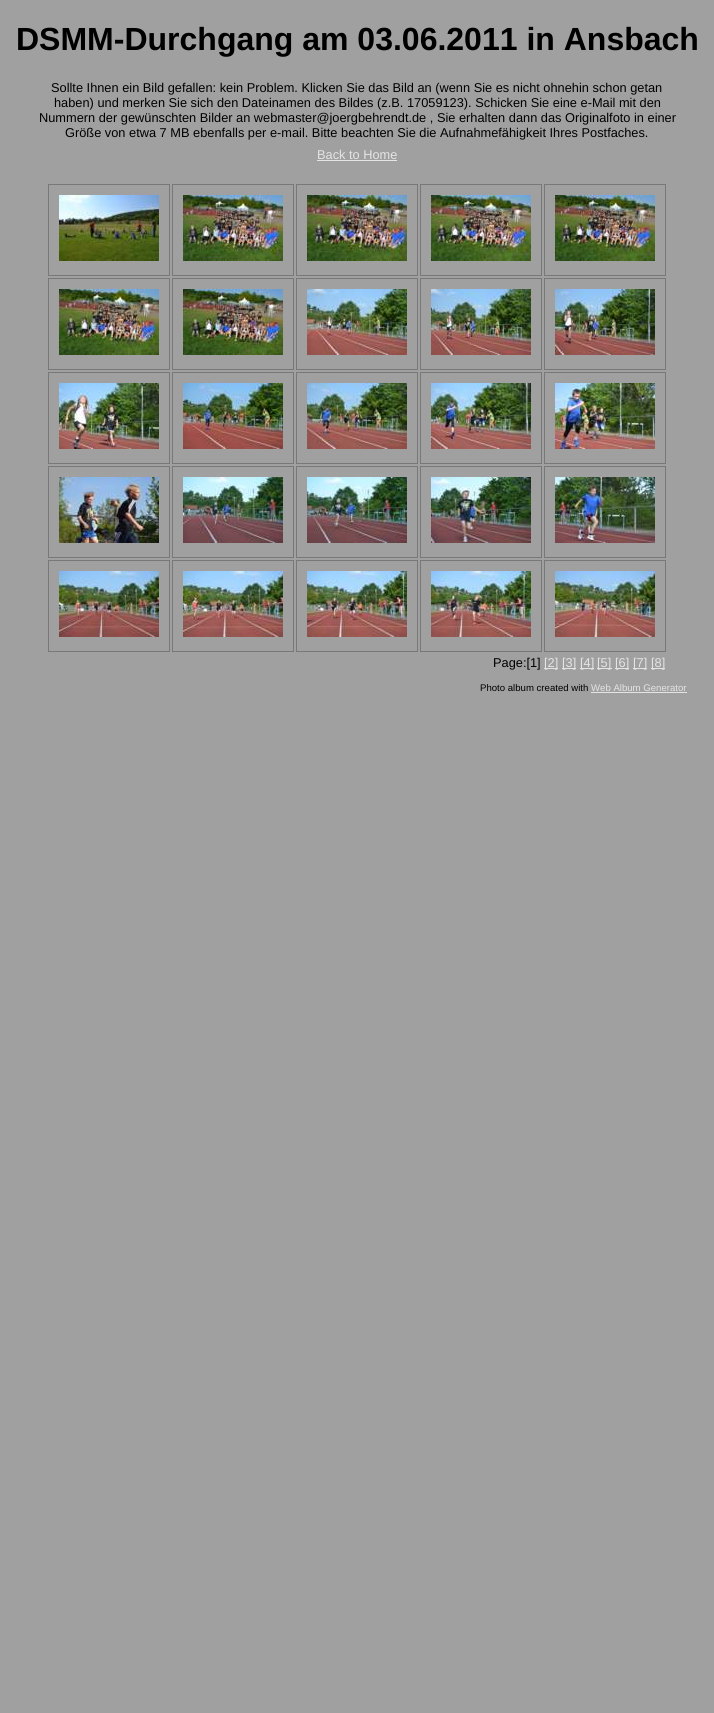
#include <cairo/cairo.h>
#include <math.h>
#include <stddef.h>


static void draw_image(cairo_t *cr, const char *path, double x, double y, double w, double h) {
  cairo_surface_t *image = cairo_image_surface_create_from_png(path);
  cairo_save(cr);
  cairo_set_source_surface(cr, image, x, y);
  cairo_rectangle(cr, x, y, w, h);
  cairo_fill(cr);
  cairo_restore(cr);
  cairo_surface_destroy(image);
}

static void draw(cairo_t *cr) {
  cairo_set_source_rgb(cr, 160 / 255.0, 160 / 255.0, 160 / 255.0);
  cairo_paint(cr);
  cairo_set_source_rgb(cr, 228 / 255.0, 228 / 255.0, 228 / 255.0);
  cairo_rectangle(cr, 317, 160, 80, 1);
  cairo_fill(cr);
  cairo_rectangle(cr, 48.5, 184.5, 121, 91);
  cairo_set_source_rgb(cr, 120 / 255.0, 120 / 255.0, 120 / 255.0);
  cairo_set_line_width(cr, 1);
  cairo_stroke(cr);
  draw_image(cr, "images/1.png", 59, 195, 100, 66);
  cairo_rectangle(cr, 172.5, 184.5, 121, 91);
  cairo_stroke(cr);
  draw_image(cr, "images/2.png", 183, 195, 100, 66);
  cairo_rectangle(cr, 296.5, 184.5, 121, 91);
  cairo_stroke(cr);
  draw_image(cr, "images/3.png", 307, 195, 100, 66);
  cairo_rectangle(cr, 420.5, 184.5, 121, 91);
  cairo_stroke(cr);
  draw_image(cr, "images/4.png", 431, 195, 100, 66);
  cairo_rectangle(cr, 544.5, 184.5, 121, 91);
  cairo_stroke(cr);
  draw_image(cr, "images/5.png", 555, 195, 100, 66);
  cairo_rectangle(cr, 48.5, 278.5, 121, 91);
  cairo_stroke(cr);
  draw_image(cr, "images/6.png", 59, 289, 100, 66);
  cairo_rectangle(cr, 172.5, 278.5, 121, 91);
  cairo_stroke(cr);
  draw_image(cr, "images/7.png", 183, 289, 100, 66);
  cairo_rectangle(cr, 296.5, 278.5, 121, 91);
  cairo_stroke(cr);
  draw_image(cr, "images/8.png", 307, 289, 100, 66);
  cairo_rectangle(cr, 420.5, 278.5, 121, 91);
  cairo_stroke(cr);
  draw_image(cr, "images/9.png", 431, 289, 100, 66);
  cairo_rectangle(cr, 544.5, 278.5, 121, 91);
  cairo_stroke(cr);
  draw_image(cr, "images/10.png", 555, 289, 100, 66);
  cairo_rectangle(cr, 48.5, 372.5, 121, 91);
  cairo_stroke(cr);
  draw_image(cr, "images/11.png", 59, 383, 100, 66);
  cairo_rectangle(cr, 172.5, 372.5, 121, 91);
  cairo_stroke(cr);
  draw_image(cr, "images/12.png", 183, 383, 100, 66);
  cairo_rectangle(cr, 296.5, 372.5, 121, 91);
  cairo_stroke(cr);
  draw_image(cr, "images/13.png", 307, 383, 100, 66);
  cairo_rectangle(cr, 420.5, 372.5, 121, 91);
  cairo_stroke(cr);
  draw_image(cr, "images/14.png", 431, 383, 100, 66);
  cairo_rectangle(cr, 544.5, 372.5, 121, 91);
  cairo_stroke(cr);
  draw_image(cr, "images/15.png", 555, 383, 100, 66);
  cairo_rectangle(cr, 48.5, 466.5, 121, 91);
  cairo_stroke(cr);
  draw_image(cr, "images/16.png", 59, 477, 100, 66);
  cairo_rectangle(cr, 172.5, 466.5, 121, 91);
  cairo_stroke(cr);
  draw_image(cr, "images/17.png", 183, 477, 100, 66);
  cairo_rectangle(cr, 296.5, 466.5, 121, 91);
  cairo_stroke(cr);
  draw_image(cr, "images/18.png", 307, 477, 100, 66);
  cairo_rectangle(cr, 420.5, 466.5, 121, 91);
  cairo_stroke(cr);
  draw_image(cr, "images/19.png", 431, 477, 100, 66);
  cairo_rectangle(cr, 544.5, 466.5, 121, 91);
  cairo_stroke(cr);
  draw_image(cr, "images/20.png", 555, 477, 100, 66);
  cairo_rectangle(cr, 48.5, 560.5, 121, 91);
  cairo_stroke(cr);
  draw_image(cr, "images/21.png", 59, 571, 100, 66);
  cairo_rectangle(cr, 172.5, 560.5, 121, 91);
  cairo_stroke(cr);
  draw_image(cr, "images/22.png", 183, 571, 100, 66);
  cairo_rectangle(cr, 296.5, 560.5, 121, 91);
  cairo_stroke(cr);
  draw_image(cr, "images/23.png", 307, 571, 100, 66);
  cairo_rectangle(cr, 420.5, 560.5, 121, 91);
  cairo_stroke(cr);
  draw_image(cr, "images/24.png", 431, 571, 100, 66);
  cairo_rectangle(cr, 544.5, 560.5, 121, 91);
  cairo_stroke(cr);
  draw_image(cr, "images/25.png", 555, 571, 100, 66);
  cairo_set_source_rgb(cr, 228 / 255.0, 228 / 255.0, 228 / 255.0);
  cairo_rectangle(cr, 544, 668, 14, 1);
  cairo_fill(cr);
  cairo_rectangle(cr, 562, 668, 14, 1);
  cairo_fill(cr);
  cairo_rectangle(cr, 580, 668, 14, 1);
  cairo_fill(cr);
  cairo_rectangle(cr, 597, 668, 15, 1);
  cairo_fill(cr);
  cairo_rectangle(cr, 615, 668, 14, 1);
  cairo_fill(cr);
  cairo_rectangle(cr, 633, 668, 14, 1);
  cairo_fill(cr);
  cairo_rectangle(cr, 651, 668, 14, 1);
  cairo_fill(cr);
  cairo_rectangle(cr, 591, 692, 96, 1);
  cairo_fill(cr);
  cairo_select_font_face(cr, "Liberation Sans", CAIRO_FONT_SLANT_NORMAL, CAIRO_FONT_WEIGHT_BOLD);
  cairo_set_font_size(cr, 32);
  cairo_set_source_rgb(cr, 0, 0, 0);
  cairo_move_to(cr, 16, 50);
  cairo_show_text(cr, "DSMM-Durchgang am 03.06.2011 in Ansbach");
  cairo_select_font_face(cr, "Liberation Sans", CAIRO_FONT_SLANT_NORMAL, CAIRO_FONT_WEIGHT_NORMAL);
  cairo_set_font_size(cr, 12.8);
  cairo_move_to(cr, 51, 92);
  cairo_show_text(cr, "Sollte Ihnen ein Bild gefallen: kein Problem. Klicken Sie das Bild an (wenn Sie es nicht ohnehin schon getan");
  cairo_move_to(cr, 54, 107);
  cairo_show_text(cr, "haben) und merken Sie sich den Dateinamen des Bildes (z.B. 17059123). Schicken Sie eine e-Mail mit den");
  cairo_move_to(cr, 39, 122);
  cairo_show_text(cr, "Nummern der gewünschten Bilder an webmaster@joergbehrendt.de , Sie erhalten dann das Originalfoto in einer");
  cairo_move_to(cr, 65, 137);
  cairo_show_text(cr, "Größe von etwa 7 MB ebenfalls per e-mail. Bitte beachten Sie die Aufnahmefähigkeit Ihres Postfaches.");
  cairo_set_source_rgb(cr, 228 / 255.0, 228 / 255.0, 228 / 255.0);
  cairo_move_to(cr, 317, 159);
  cairo_show_text(cr, "Back to Home");
  cairo_set_source_rgb(cr, 0, 0, 0);
  cairo_move_to(cr, 493, 667);
  cairo_show_text(cr, "Page:[1]");
  cairo_set_source_rgb(cr, 228 / 255.0, 228 / 255.0, 228 / 255.0);
  cairo_move_to(cr, 544, 667);
  cairo_show_text(cr, "[2]");
  cairo_move_to(cr, 562, 667);
  cairo_show_text(cr, "[3]");
  cairo_move_to(cr, 580, 667);
  cairo_show_text(cr, "[4]");
  cairo_move_to(cr, 597, 667);
  cairo_show_text(cr, "[5]");
  cairo_move_to(cr, 615, 667);
  cairo_show_text(cr, "[6]");
  cairo_move_to(cr, 633, 667);
  cairo_show_text(cr, "[7]");
  cairo_move_to(cr, 651, 667);
  cairo_show_text(cr, "[8]");
  cairo_set_font_size(cr, 9.6);
  cairo_set_source_rgb(cr, 0, 0, 0);
  cairo_move_to(cr, 480, 691);
  cairo_show_text(cr, "Photo album created with");
  cairo_set_source_rgb(cr, 228 / 255.0, 228 / 255.0, 228 / 255.0);
  cairo_move_to(cr, 591, 691);
  cairo_show_text(cr, "Web Album Generator");
}

int main(void) {
  cairo_surface_t *surface = cairo_image_surface_create(CAIRO_FORMAT_RGB24, 714, 1713);
  cairo_t *cr = cairo_create(surface);
  cairo_font_options_t *options = cairo_font_options_create();
  cairo_font_options_set_hint_metrics(options, CAIRO_HINT_METRICS_OFF);
  cairo_font_options_set_hint_style(options, CAIRO_HINT_STYLE_NONE);
  cairo_set_font_options(cr, options);
  cairo_set_miter_limit(cr, 4);
  draw(cr);
  cairo_surface_write_to_png(surface, "out.png");
  cairo_font_options_destroy(options);
  cairo_destroy(cr);
  cairo_surface_destroy(surface);
  return 0;
}
